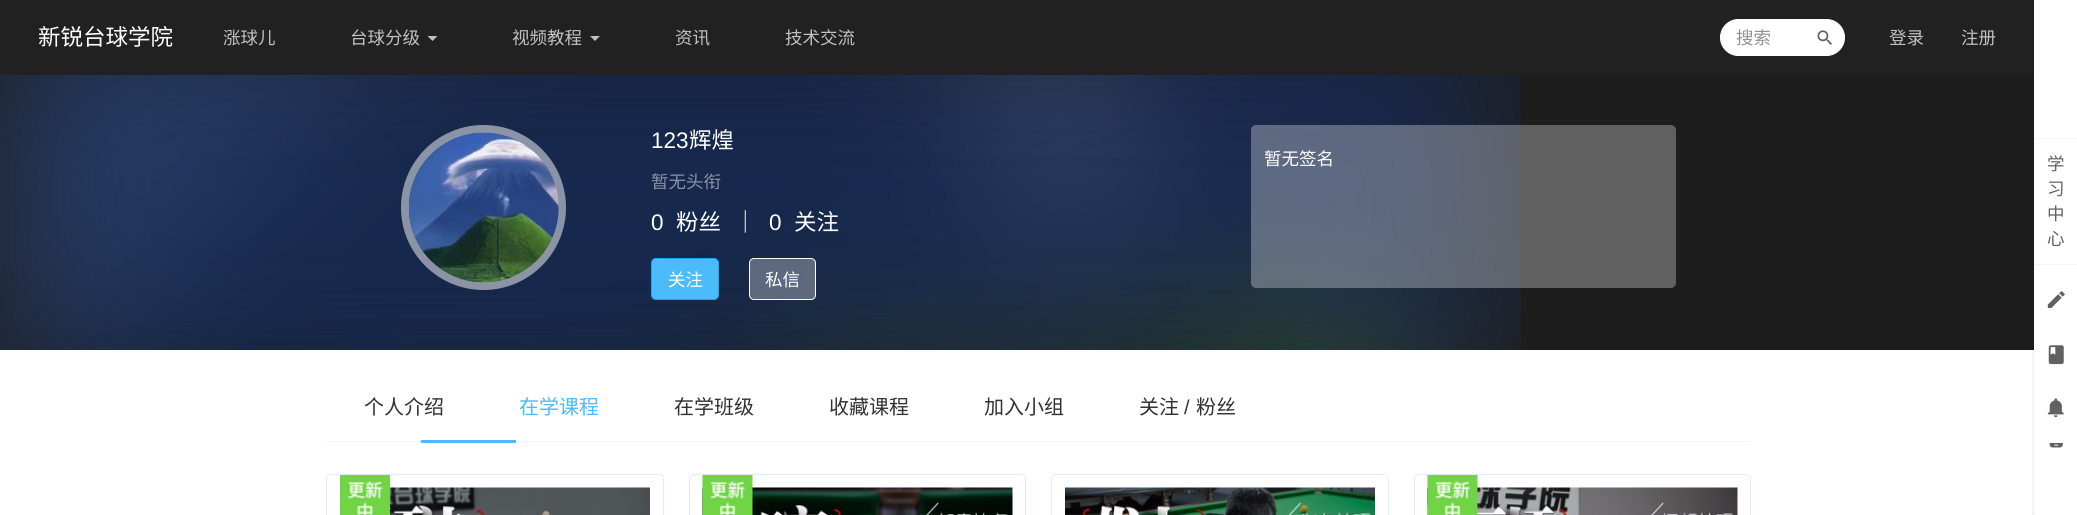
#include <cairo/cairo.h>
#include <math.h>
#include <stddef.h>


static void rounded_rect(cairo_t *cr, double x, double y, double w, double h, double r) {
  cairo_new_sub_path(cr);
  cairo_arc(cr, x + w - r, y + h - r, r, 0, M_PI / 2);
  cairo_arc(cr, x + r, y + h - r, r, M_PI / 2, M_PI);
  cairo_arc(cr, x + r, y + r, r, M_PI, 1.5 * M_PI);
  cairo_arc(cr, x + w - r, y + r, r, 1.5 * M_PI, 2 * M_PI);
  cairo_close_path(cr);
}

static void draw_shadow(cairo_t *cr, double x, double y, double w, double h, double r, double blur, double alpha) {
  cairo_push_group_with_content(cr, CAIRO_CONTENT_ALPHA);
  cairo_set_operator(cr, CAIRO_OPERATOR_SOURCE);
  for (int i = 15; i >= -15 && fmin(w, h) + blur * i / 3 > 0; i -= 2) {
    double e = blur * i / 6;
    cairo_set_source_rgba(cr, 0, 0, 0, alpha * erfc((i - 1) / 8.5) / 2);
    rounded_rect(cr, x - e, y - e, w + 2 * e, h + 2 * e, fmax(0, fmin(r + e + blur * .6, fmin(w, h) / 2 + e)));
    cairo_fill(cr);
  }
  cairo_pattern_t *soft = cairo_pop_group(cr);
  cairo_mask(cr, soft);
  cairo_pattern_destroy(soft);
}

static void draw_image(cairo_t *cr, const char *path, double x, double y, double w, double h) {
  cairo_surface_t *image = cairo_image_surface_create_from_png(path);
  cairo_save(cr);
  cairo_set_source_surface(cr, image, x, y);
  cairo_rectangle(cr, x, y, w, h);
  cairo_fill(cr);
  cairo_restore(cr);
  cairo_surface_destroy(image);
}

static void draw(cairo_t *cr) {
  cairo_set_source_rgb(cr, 1, 1, 1);
  cairo_paint(cr);
  cairo_set_source_rgb(cr, 33 / 255.0, 33 / 255.0, 33 / 255.0);
  cairo_rectangle(cr, 0, 0, 2034, 75);
  cairo_fill(cr);
  cairo_set_source_rgb(cr, 193 / 255.0, 193 / 255.0, 193 / 255.0);
  cairo_new_path(cr);
  cairo_move_to(cr, 427.5, 36);
  cairo_line_to(cr, 437.5, 36);
  cairo_line_to(cr, 432.5, 41);
  cairo_close_path(cr);
  cairo_fill(cr);
  cairo_new_path(cr);
  cairo_move_to(cr, 590, 36);
  cairo_line_to(cr, 600, 36);
  cairo_line_to(cr, 595, 41);
  cairo_close_path(cr);
  cairo_fill(cr);
  cairo_set_source_rgb(cr, 1, 1, 1);
  rounded_rect(cr, 1720.5, 19.5, 124, 36, 18);
  cairo_fill_preserve(cr);
  cairo_set_line_width(cr, 1);
  cairo_stroke(cr);
  draw_image(cr, "images/1.png", 1817, 30, 15, 15);
  cairo_set_source_rgb(cr, 29 / 255.0, 29 / 255.0, 29 / 255.0);
  cairo_rectangle(cr, 0, 75, 2034, 275);
  cairo_fill(cr);
  draw_image(cr, "images/2.png", 0, 75, 1521, 275);
  cairo_arc(cr, 483.5, 207.5, 78.5, 0, 2 * M_PI);
  cairo_set_source_rgba(cr, 1, 1, 1, 0.5);
  cairo_set_line_width(cr, 8);
  cairo_stroke(cr);
  draw_image(cr, "images/3.png", 408, 132, 151, 151);
  cairo_set_source_rgb(cr, 75 / 255.0, 187 / 255.0, 250 / 255.0);
  rounded_rect(cr, 651.5, 258.5, 67, 41, 4.5);
  cairo_fill_preserve(cr);
  cairo_set_source_rgb(cr, 25 / 255.0, 168 / 255.0, 249 / 255.0);
  cairo_set_line_width(cr, 1);
  cairo_stroke(cr);
  cairo_set_source_rgba(cr, 1, 1, 1, 0.3);
  rounded_rect(cr, 749.5, 258.5, 66, 41, 4.5);
  cairo_fill_preserve(cr);
  cairo_set_source_rgb(cr, 1, 1, 1);
  cairo_stroke(cr);
  cairo_set_source_rgba(cr, 1, 1, 1, 0.3);
  rounded_rect(cr, 1251, 125, 425, 163, 5);
  cairo_fill(cr);
  cairo_set_source_rgb(cr, 245 / 255.0, 245 / 255.0, 245 / 255.0);
  cairo_rectangle(cr, 326, 441, 1425, 1);
  cairo_fill(cr);
  cairo_set_source_rgb(cr, 75 / 255.0, 187 / 255.0, 250 / 255.0);
  cairo_rectangle(cr, 421, 440, 95, 3);
  cairo_fill(cr);
  rounded_rect(cr, 326.5, 474.5, 337, 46, 4.5);
  cairo_set_source_rgb(cr, 228 / 255.0, 236 / 255.0, 243 / 255.0);
  cairo_stroke(cr);
  draw_image(cr, "images/4.png", 340, 475, 50, 40);
  draw_image(cr, "images/5.png", 390, 487, 260, 28);
  rounded_rect(cr, 689.5, 474.5, 336, 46, 4.5);
  cairo_stroke(cr);
  draw_image(cr, "images/7.png", 702, 487, 311, 28);
  draw_image(cr, "images/6.png", 702, 475, 51, 40);
  rounded_rect(cr, 1051.5, 474.5, 337, 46, 4.5);
  cairo_stroke(cr);
  draw_image(cr, "images/8.png", 1065, 487, 310, 28);
  rounded_rect(cr, 1414.5, 474.5, 336, 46, 4.5);
  cairo_stroke(cr);
  draw_image(cr, "images/10.png", 1427, 487, 311, 28);
  draw_image(cr, "images/9.png", 1427, 475, 51, 40);
  cairo_save(cr);
  cairo_rectangle(cr, 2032, 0, 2, 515);
  cairo_clip(cr);
  cairo_set_source_rgb(cr, 0, 0, 0);
  draw_shadow(cr, 2033, 0, 43, 515, 0, 1, 0.1);
  cairo_restore(cr);
  cairo_set_source_rgb(cr, 245 / 255.0, 245 / 255.0, 245 / 255.0);
  cairo_rectangle(cr, 2034, 138, 43, 1);
  cairo_fill(cr);
  cairo_rectangle(cr, 2034, 264, 43, 1);
  cairo_fill(cr);
  draw_image(cr, "images/11.png", 2047, 291, 18, 18);
  draw_image(cr, "images/12.png", 2048, 345, 16, 20);
  draw_image(cr, "images/13.png", 2047, 398, 17, 20);
  draw_image(cr, "images/14.png", 2049, 443, 14, 5);
  cairo_select_font_face(cr, "Noto Sans CJK SC", CAIRO_FONT_SLANT_NORMAL, CAIRO_FONT_WEIGHT_NORMAL);
  cairo_set_font_size(cr, 22.5);
  cairo_set_source_rgb(cr, 1, 1, 1);
  cairo_move_to(cr, 38, 45);
  cairo_show_text(cr, "新锐台球学院");
  cairo_set_font_size(cr, 17.5);
  cairo_set_source_rgb(cr, 193 / 255.0, 193 / 255.0, 193 / 255.0);
  cairo_move_to(cr, 223, 44);
  cairo_show_text(cr, "涨球儿");
  cairo_move_to(cr, 350, 44);
  cairo_show_text(cr, "台球分级");
  cairo_move_to(cr, 512, 44);
  cairo_show_text(cr, "视频教程");
  cairo_move_to(cr, 675, 44);
  cairo_show_text(cr, "资讯");
  cairo_move_to(cr, 785, 44);
  cairo_show_text(cr, "技术交流");
  cairo_set_source_rgb(cr, 145 / 255.0, 145 / 255.0, 145 / 255.0);
  cairo_move_to(cr, 1736, 44);
  cairo_show_text(cr, "搜索");
  cairo_set_source_rgb(cr, 193 / 255.0, 193 / 255.0, 193 / 255.0);
  cairo_move_to(cr, 1889, 44);
  cairo_show_text(cr, "登录");
  cairo_move_to(cr, 1961, 44);
  cairo_show_text(cr, "注册");
  cairo_select_font_face(cr, "Liberation Sans", CAIRO_FONT_SLANT_NORMAL, CAIRO_FONT_WEIGHT_NORMAL);
  cairo_set_font_size(cr, 22.5);
  cairo_set_source_rgb(cr, 1, 1, 1);
  cairo_move_to(cr, 651, 148);
  cairo_show_text(cr, "123");
  cairo_select_font_face(cr, "Noto Sans CJK SC", CAIRO_FONT_SLANT_NORMAL, CAIRO_FONT_WEIGHT_NORMAL);
  cairo_move_to(cr, 689, 148);
  cairo_show_text(cr, "辉煌");
  cairo_set_font_size(cr, 17.5);
  cairo_set_source_rgb(cr, 138 / 255.0, 147 / 255.0, 165 / 255.0);
  cairo_move_to(cr, 651, 188);
  cairo_show_text(cr, "暂无头衔");
  cairo_select_font_face(cr, "Liberation Sans", CAIRO_FONT_SLANT_NORMAL, CAIRO_FONT_WEIGHT_NORMAL);
  cairo_set_font_size(cr, 22.5);
  cairo_set_source_rgb(cr, 1, 1, 1);
  cairo_move_to(cr, 651, 230);
  cairo_show_text(cr, "0");
  cairo_select_font_face(cr, "Noto Sans CJK SC", CAIRO_FONT_SLANT_NORMAL, CAIRO_FONT_WEIGHT_NORMAL);
  cairo_move_to(cr, 676, 230);
  cairo_show_text(cr, "粉丝");
  cairo_move_to(cr, 734, 230);
  cairo_show_text(cr, "｜");
  cairo_select_font_face(cr, "Liberation Sans", CAIRO_FONT_SLANT_NORMAL, CAIRO_FONT_WEIGHT_NORMAL);
  cairo_move_to(cr, 769, 230);
  cairo_show_text(cr, "0");
  cairo_select_font_face(cr, "Noto Sans CJK SC", CAIRO_FONT_SLANT_NORMAL, CAIRO_FONT_WEIGHT_NORMAL);
  cairo_move_to(cr, 794, 230);
  cairo_show_text(cr, "关注");
  cairo_set_font_size(cr, 17.5);
  cairo_move_to(cr, 668, 286);
  cairo_show_text(cr, "关注");
  cairo_move_to(cr, 765, 286);
  cairo_show_text(cr, "私信");
  cairo_move_to(cr, 1264, 165);
  cairo_show_text(cr, "暂无签名");
  cairo_set_font_size(cr, 20);
  cairo_set_source_rgb(cr, 49 / 255.0, 49 / 255.0, 49 / 255.0);
  cairo_move_to(cr, 364, 414);
  cairo_show_text(cr, "个人介绍");
  cairo_set_source_rgb(cr, 75 / 255.0, 187 / 255.0, 250 / 255.0);
  cairo_move_to(cr, 519, 414);
  cairo_show_text(cr, "在学课程");
  cairo_set_source_rgb(cr, 49 / 255.0, 49 / 255.0, 49 / 255.0);
  cairo_move_to(cr, 674, 414);
  cairo_show_text(cr, "在学班级");
  cairo_move_to(cr, 829, 414);
  cairo_show_text(cr, "收藏课程");
  cairo_move_to(cr, 984, 414);
  cairo_show_text(cr, "加入小组");
  cairo_move_to(cr, 1139, 414);
  cairo_show_text(cr, "关注");
  cairo_select_font_face(cr, "Liberation Sans", CAIRO_FONT_SLANT_NORMAL, CAIRO_FONT_WEIGHT_NORMAL);
  cairo_move_to(cr, 1184, 414);
  cairo_show_text(cr, "/");
  cairo_select_font_face(cr, "Noto Sans CJK SC", CAIRO_FONT_SLANT_NORMAL, CAIRO_FONT_WEIGHT_NORMAL);
  cairo_move_to(cr, 1196, 414);
  cairo_show_text(cr, "粉丝");
  cairo_set_font_size(cr, 17.5);
  cairo_set_source_rgb(cr, 97 / 255.0, 97 / 255.0, 97 / 255.0);
  cairo_move_to(cr, 2047, 170);
  cairo_show_text(cr, "学");
  cairo_move_to(cr, 2047, 195);
  cairo_show_text(cr, "习");
  cairo_move_to(cr, 2047, 220);
  cairo_show_text(cr, "中");
  cairo_move_to(cr, 2047, 245);
  cairo_show_text(cr, "心");
}

int main(void) {
  cairo_surface_t *surface = cairo_image_surface_create(CAIRO_FORMAT_RGB24, 2077, 515);
  cairo_t *cr = cairo_create(surface);
  cairo_font_options_t *options = cairo_font_options_create();
  cairo_font_options_set_hint_metrics(options, CAIRO_HINT_METRICS_OFF);
  cairo_font_options_set_hint_style(options, CAIRO_HINT_STYLE_NONE);
  cairo_set_font_options(cr, options);
  cairo_set_miter_limit(cr, 4);
  draw(cr);
  cairo_surface_write_to_png(surface, "out.png");
  cairo_font_options_destroy(options);
  cairo_destroy(cr);
  cairo_surface_destroy(surface);
  return 0;
}
